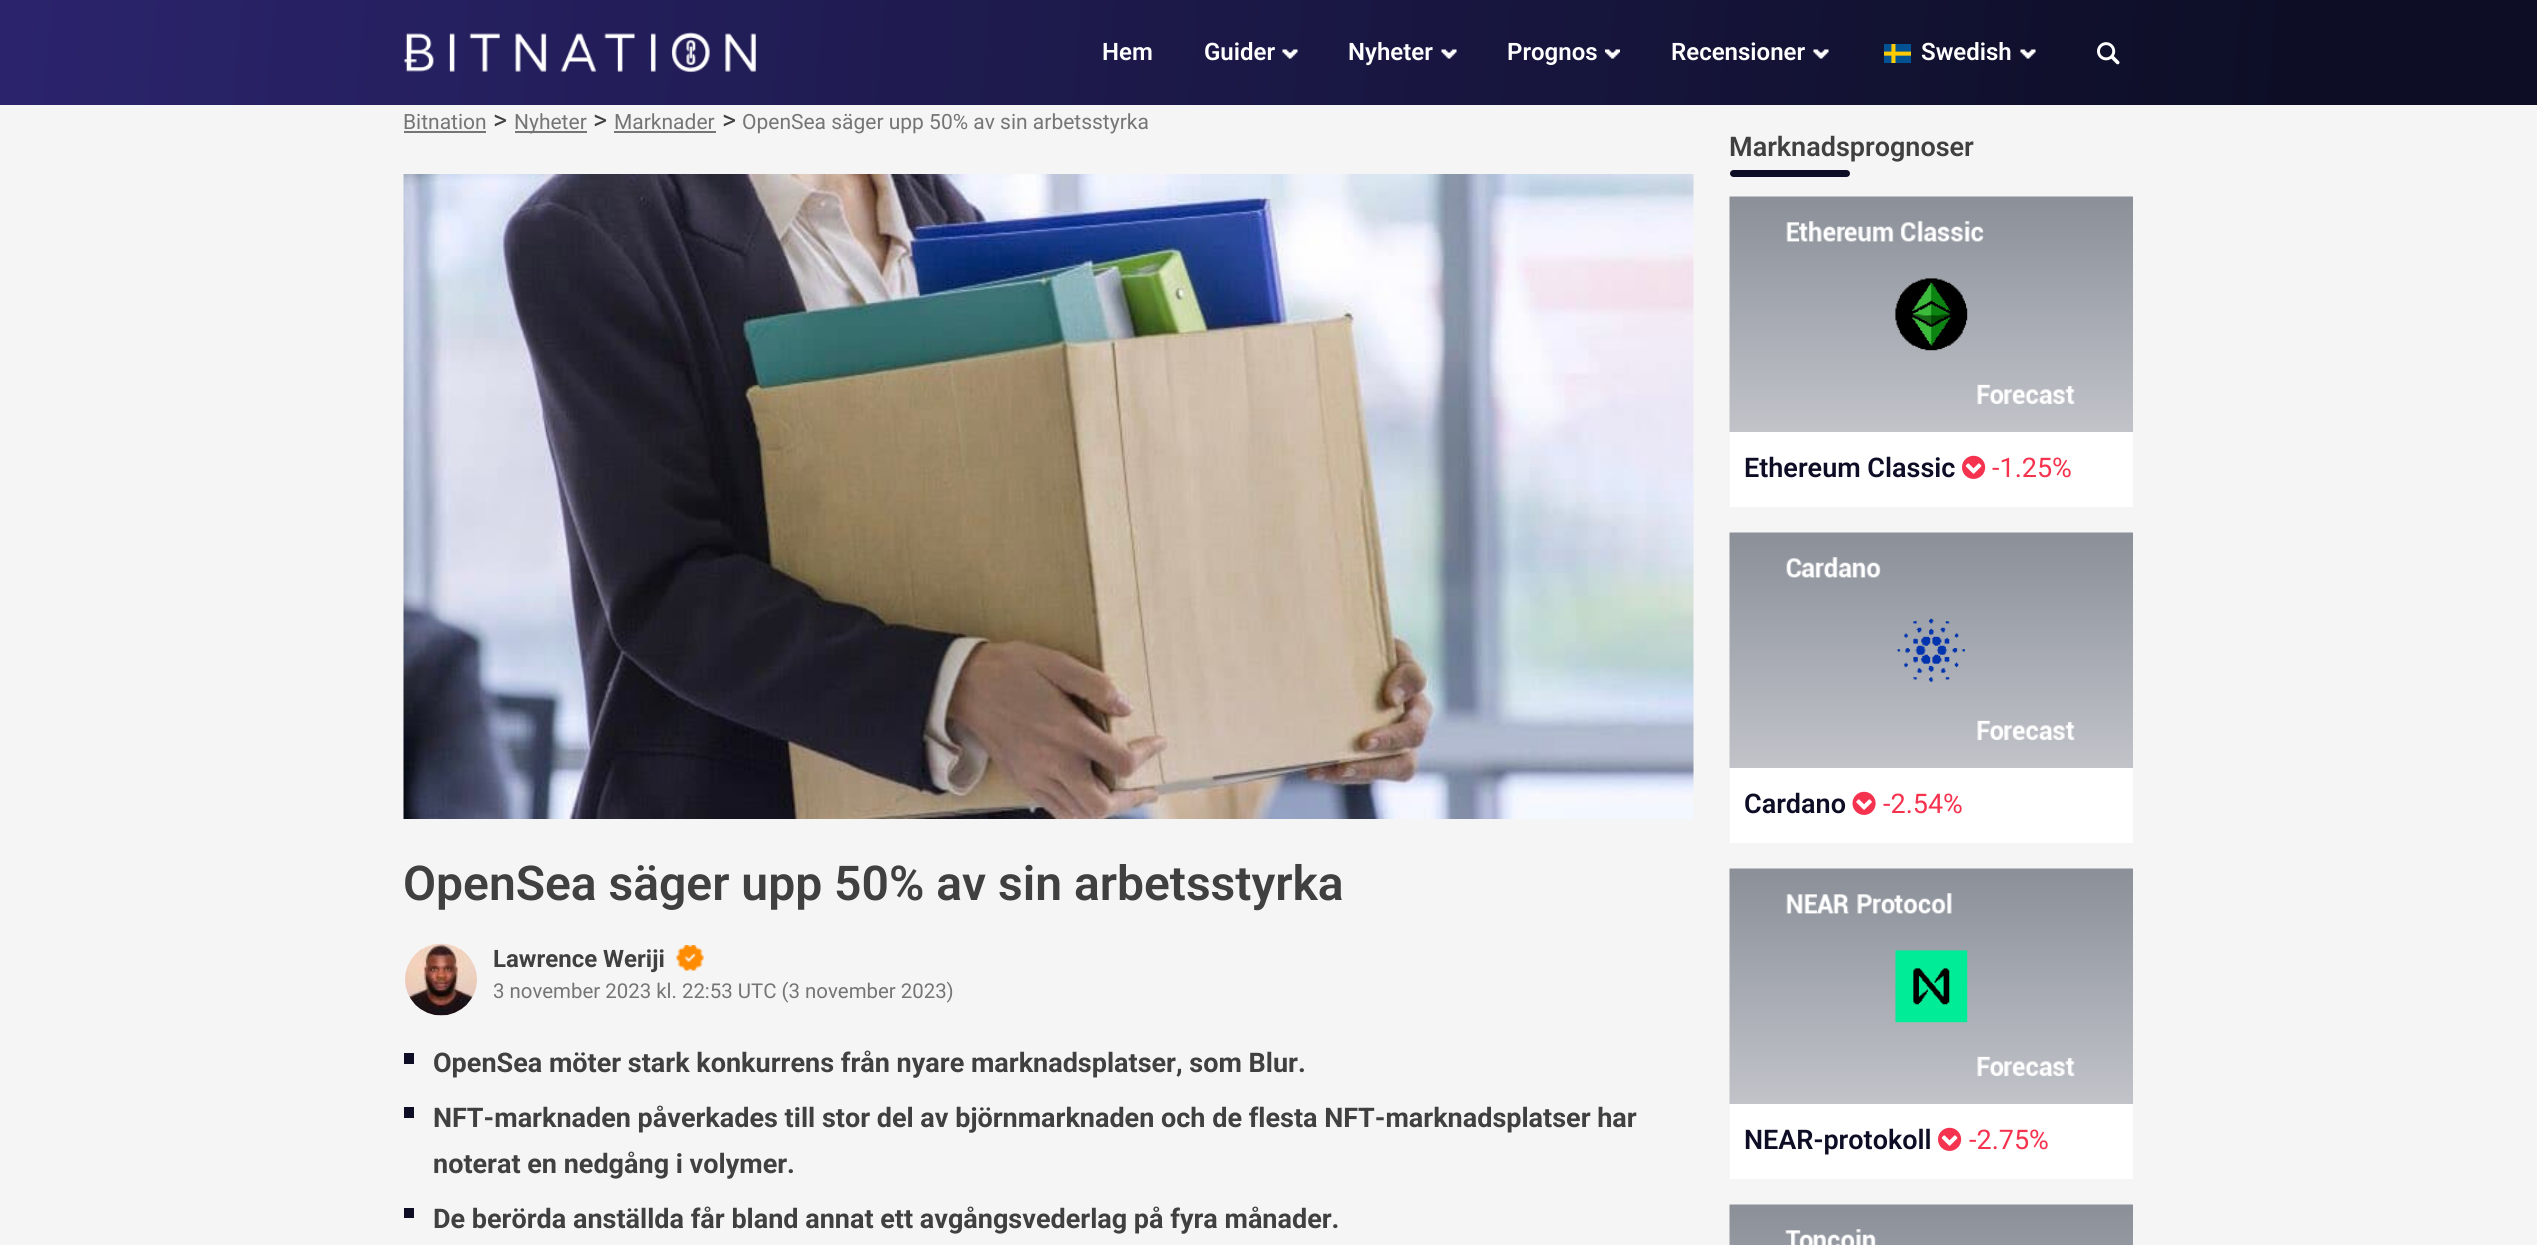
#include <cairo/cairo.h>
#include <math.h>
#include <stddef.h>


static void rounded_rect(cairo_t *cr, double x, double y, double w, double h, double r) {
  cairo_new_sub_path(cr);
  cairo_arc(cr, x + w - r, y + h - r, r, 0, M_PI / 2);
  cairo_arc(cr, x + r, y + h - r, r, M_PI / 2, M_PI);
  cairo_arc(cr, x + r, y + r, r, M_PI, 1.5 * M_PI);
  cairo_arc(cr, x + w - r, y + r, r, 1.5 * M_PI, 2 * M_PI);
  cairo_close_path(cr);
}

static void draw_image(cairo_t *cr, const char *path, double x, double y, double w, double h) {
  cairo_surface_t *image = cairo_image_surface_create_from_png(path);
  cairo_save(cr);
  cairo_set_source_surface(cr, image, x, y);
  cairo_rectangle(cr, x, y, w, h);
  cairo_fill(cr);
  cairo_restore(cr);
  cairo_surface_destroy(image);
}

static void draw(cairo_t *cr) {
  cairo_pattern_t *gradient;
  cairo_set_source_rgb(cr, 245 / 255.0, 245 / 255.0, 245 / 255.0);
  cairo_paint(cr);
  gradient = cairo_pattern_create_linear(2533, 163, 5.1, -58);
  cairo_pattern_add_color_stop_rgba(gradient, 0.1, 13 / 255.0, 14 / 255.0, 38 / 255.0, 1);
  cairo_pattern_add_color_stop_rgba(gradient, 1, 43 / 255.0, 36 / 255.0, 109 / 255.0, 1);
  cairo_set_source(cr, gradient);
  cairo_pattern_destroy(gradient);
  cairo_rectangle(cr, 0, 0, 2537, 105);
  cairo_fill(cr);
  draw_image(cr, "images/1.png", 403, 32, 353, 41);
  draw_image(cr, "images/2.png", 1282, 49, 16, 10);
  draw_image(cr, "images/3.png", 1441, 49, 16, 10);
  draw_image(cr, "images/4.png", 1605, 49, 15, 10);
  draw_image(cr, "images/5.png", 1813, 49, 16, 10);
  draw_image(cr, "images/6.png", 1884, 44, 27, 19);
  draw_image(cr, "images/7.png", 2020, 49, 16, 10);
  draw_image(cr, "images/8.png", 2097, 42, 23, 23);
  cairo_set_source_rgb(cr, 117 / 255.0, 117 / 255.0, 117 / 255.0);
  cairo_rectangle(cr, 404, 131, 82, 2);
  cairo_fill(cr);
  cairo_rectangle(cr, 515, 131, 72, 2);
  cairo_fill(cr);
  cairo_rectangle(cr, 614, 131, 102, 2);
  cairo_fill(cr);
  draw_image(cr, "images/9.png", 403, 174, 1291, 645);
  draw_image(cr, "images/10.png", 405, 943, 72, 73);
  draw_image(cr, "images/11.png", 676, 945, 28, 26);
  cairo_set_source_rgb(cr, 13 / 255.0, 14 / 255.0, 38 / 255.0);
  cairo_rectangle(cr, 404, 1053, 10, 11);
  cairo_fill(cr);
  cairo_rectangle(cr, 404, 1107, 10, 11);
  cairo_fill(cr);
  cairo_rectangle(cr, 404, 1208, 10, 10);
  cairo_fill(cr);
  rounded_rect(cr, 1730, 170, 120, 7, 3.5);
  cairo_fill(cr);
  cairo_set_source_rgb(cr, 1, 1, 1);
  cairo_rectangle(cr, 1730, 432, 403, 75);
  cairo_fill(cr);
  draw_image(cr, "images/12.png", 1729, 196, 404, 236);
  draw_image(cr, "images/13.png", 1962, 455, 24, 24);
  cairo_rectangle(cr, 1730, 768, 403, 75);
  cairo_fill(cr);
  draw_image(cr, "images/14.png", 1729, 532, 404, 236);
  draw_image(cr, "images/15.png", 1852, 791, 24, 24);
  cairo_rectangle(cr, 1730, 1104, 403, 75);
  cairo_fill(cr);
  draw_image(cr, "images/16.png", 1729, 868, 404, 236);
  draw_image(cr, "images/13.png", 1938, 1127, 24, 24);
  draw_image(cr, "images/17.png", 1729, 1204, 404, 41);
  cairo_select_font_face(cr, "Roboto SemiBold", CAIRO_FONT_SLANT_NORMAL, CAIRO_FONT_WEIGHT_NORMAL);
  cairo_set_font_size(cr, 24);
  cairo_move_to(cr, 1102, 60);
  cairo_show_text(cr, "Hem");
  cairo_move_to(cr, 1204, 60);
  cairo_show_text(cr, "Guider");
  cairo_move_to(cr, 1348, 60);
  cairo_show_text(cr, "Nyheter");
  cairo_move_to(cr, 1507, 60);
  cairo_show_text(cr, "Prognos");
  cairo_move_to(cr, 1671, 60);
  cairo_show_text(cr, "Recensioner");
  cairo_move_to(cr, 1921, 60);
  cairo_show_text(cr, "Swedish");
  cairo_select_font_face(cr, "Roboto", CAIRO_FONT_SLANT_NORMAL, CAIRO_FONT_WEIGHT_NORMAL);
  cairo_set_font_size(cr, 21);
  cairo_set_source_rgb(cr, 117 / 255.0, 117 / 255.0, 117 / 255.0);
  cairo_move_to(cr, 403, 129);
  cairo_show_text(cr, "Bitnation");
  cairo_set_font_size(cr, 27);
  cairo_set_source_rgb(cr, 64 / 255.0, 64 / 255.0, 64 / 255.0);
  cairo_move_to(cr, 493, 129);
  cairo_show_text(cr, ">");
  cairo_set_font_size(cr, 21);
  cairo_set_source_rgb(cr, 117 / 255.0, 117 / 255.0, 117 / 255.0);
  cairo_move_to(cr, 514, 129);
  cairo_show_text(cr, "Nyheter");
  cairo_set_font_size(cr, 27);
  cairo_set_source_rgb(cr, 64 / 255.0, 64 / 255.0, 64 / 255.0);
  cairo_move_to(cr, 593, 129);
  cairo_show_text(cr, ">");
  cairo_set_font_size(cr, 21);
  cairo_set_source_rgb(cr, 117 / 255.0, 117 / 255.0, 117 / 255.0);
  cairo_move_to(cr, 614, 129);
  cairo_show_text(cr, "Marknader");
  cairo_set_font_size(cr, 27);
  cairo_set_source_rgb(cr, 64 / 255.0, 64 / 255.0, 64 / 255.0);
  cairo_move_to(cr, 722, 129);
  cairo_show_text(cr, ">");
  cairo_set_font_size(cr, 21);
  cairo_set_source_rgb(cr, 117 / 255.0, 117 / 255.0, 117 / 255.0);
  cairo_move_to(cr, 742, 129);
  cairo_show_text(cr, "OpenSea säger upp 50% av sin arbetsstyrka");
  cairo_select_font_face(cr, "Roboto SemiBold", CAIRO_FONT_SLANT_NORMAL, CAIRO_FONT_WEIGHT_NORMAL);
  cairo_set_font_size(cr, 48);
  cairo_set_source_rgb(cr, 64 / 255.0, 64 / 255.0, 64 / 255.0);
  cairo_move_to(cr, 403, 900);
  cairo_show_text(cr, "OpenSea säger upp 50% av sin arbetsstyrka");
  cairo_select_font_face(cr, "Roboto", CAIRO_FONT_SLANT_NORMAL, CAIRO_FONT_WEIGHT_BOLD);
  cairo_set_font_size(cr, 24);
  cairo_move_to(cr, 493, 967);
  cairo_show_text(cr, "Lawrence Weriji");
  cairo_select_font_face(cr, "Roboto", CAIRO_FONT_SLANT_NORMAL, CAIRO_FONT_WEIGHT_NORMAL);
  cairo_set_font_size(cr, 20.4);
  cairo_set_source_rgb(cr, 117 / 255.0, 117 / 255.0, 117 / 255.0);
  cairo_move_to(cr, 493, 998);
  cairo_show_text(cr, "3 november 2023 kl. 22:53 UTC (3 november 2023)");
  cairo_select_font_face(cr, "Roboto", CAIRO_FONT_SLANT_NORMAL, CAIRO_FONT_WEIGHT_BOLD);
  cairo_set_font_size(cr, 27);
  cairo_set_source_rgb(cr, 64 / 255.0, 64 / 255.0, 64 / 255.0);
  cairo_move_to(cr, 433, 1072);
  cairo_show_text(cr, "OpenSea möter stark konkurrens från nyare marknadsplatser, som Blur.");
  cairo_move_to(cr, 433, 1127);
  cairo_show_text(cr, "NFT-marknaden påverkades till stor del av björnmarknaden och de flesta NFT-marknadsplatser har");
  cairo_move_to(cr, 433, 1173);
  cairo_show_text(cr, "noterat en nedgång i volymer.");
  cairo_move_to(cr, 433, 1228);
  cairo_show_text(cr, "De berörda anställda får bland annat ett avgångsvederlag på fyra månader.");
  cairo_select_font_face(cr, "Roboto SemiBold", CAIRO_FONT_SLANT_NORMAL, CAIRO_FONT_WEIGHT_NORMAL);
  cairo_move_to(cr, 1729, 156);
  cairo_show_text(cr, "Marknadsprognoser");
  cairo_set_source_rgb(cr, 13 / 255.0, 14 / 255.0, 38 / 255.0);
  cairo_move_to(cr, 1744, 477);
  cairo_show_text(cr, "Ethereum Classic");
  cairo_select_font_face(cr, "Roboto", CAIRO_FONT_SLANT_NORMAL, CAIRO_FONT_WEIGHT_NORMAL);
  cairo_set_source_rgb(cr, 245 / 255.0, 51 / 255.0, 79 / 255.0);
  cairo_move_to(cr, 1992, 477);
  cairo_show_text(cr, "-1.25%");
  cairo_select_font_face(cr, "Roboto SemiBold", CAIRO_FONT_SLANT_NORMAL, CAIRO_FONT_WEIGHT_NORMAL);
  cairo_set_source_rgb(cr, 13 / 255.0, 14 / 255.0, 38 / 255.0);
  cairo_move_to(cr, 1744, 813);
  cairo_show_text(cr, "Cardano");
  cairo_select_font_face(cr, "Roboto", CAIRO_FONT_SLANT_NORMAL, CAIRO_FONT_WEIGHT_NORMAL);
  cairo_set_source_rgb(cr, 245 / 255.0, 51 / 255.0, 79 / 255.0);
  cairo_move_to(cr, 1883, 813);
  cairo_show_text(cr, "-2.54%");
  cairo_select_font_face(cr, "Roboto SemiBold", CAIRO_FONT_SLANT_NORMAL, CAIRO_FONT_WEIGHT_NORMAL);
  cairo_set_source_rgb(cr, 13 / 255.0, 14 / 255.0, 38 / 255.0);
  cairo_move_to(cr, 1744, 1149);
  cairo_show_text(cr, "NEAR-protokoll");
  cairo_select_font_face(cr, "Roboto", CAIRO_FONT_SLANT_NORMAL, CAIRO_FONT_WEIGHT_NORMAL);
  cairo_set_source_rgb(cr, 245 / 255.0, 51 / 255.0, 79 / 255.0);
  cairo_move_to(cr, 1969, 1149);
  cairo_show_text(cr, "-2.75%");
}

int main(void) {
  cairo_surface_t *surface = cairo_image_surface_create(CAIRO_FORMAT_RGB24, 2537, 1245);
  cairo_t *cr = cairo_create(surface);
  cairo_font_options_t *options = cairo_font_options_create();
  cairo_font_options_set_hint_metrics(options, CAIRO_HINT_METRICS_OFF);
  cairo_font_options_set_hint_style(options, CAIRO_HINT_STYLE_NONE);
  cairo_set_font_options(cr, options);
  cairo_set_miter_limit(cr, 4);
  draw(cr);
  cairo_surface_write_to_png(surface, "out.png");
  cairo_font_options_destroy(options);
  cairo_destroy(cr);
  cairo_surface_destroy(surface);
  return 0;
}
